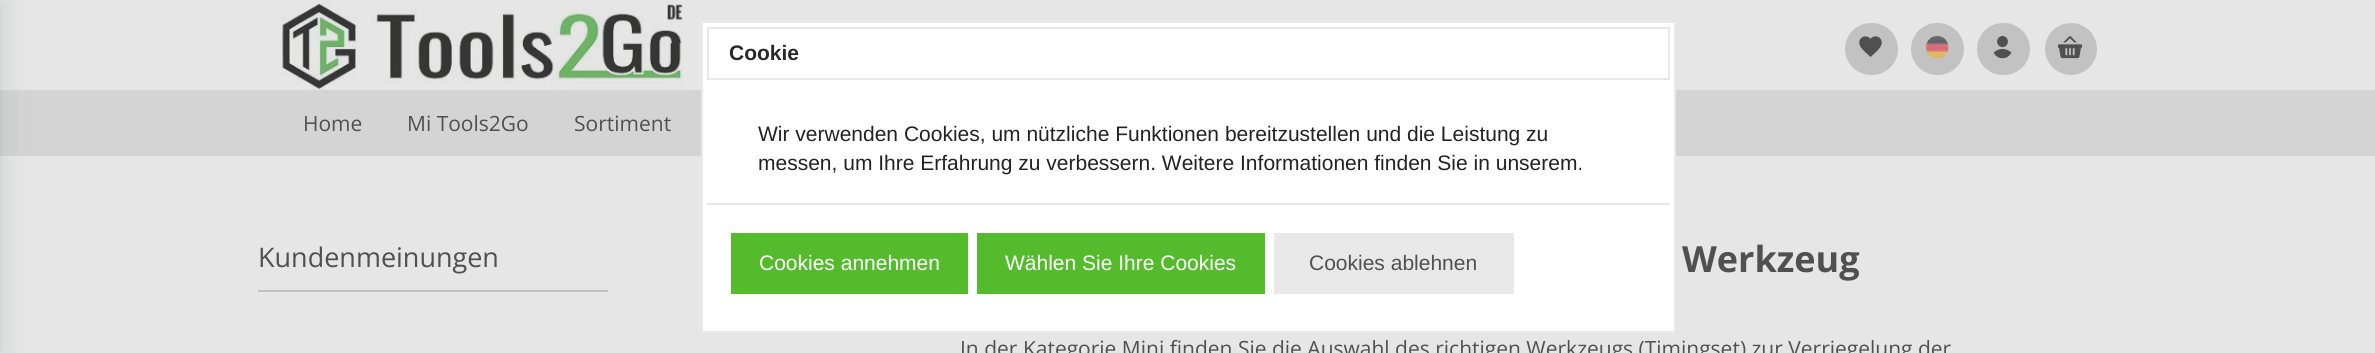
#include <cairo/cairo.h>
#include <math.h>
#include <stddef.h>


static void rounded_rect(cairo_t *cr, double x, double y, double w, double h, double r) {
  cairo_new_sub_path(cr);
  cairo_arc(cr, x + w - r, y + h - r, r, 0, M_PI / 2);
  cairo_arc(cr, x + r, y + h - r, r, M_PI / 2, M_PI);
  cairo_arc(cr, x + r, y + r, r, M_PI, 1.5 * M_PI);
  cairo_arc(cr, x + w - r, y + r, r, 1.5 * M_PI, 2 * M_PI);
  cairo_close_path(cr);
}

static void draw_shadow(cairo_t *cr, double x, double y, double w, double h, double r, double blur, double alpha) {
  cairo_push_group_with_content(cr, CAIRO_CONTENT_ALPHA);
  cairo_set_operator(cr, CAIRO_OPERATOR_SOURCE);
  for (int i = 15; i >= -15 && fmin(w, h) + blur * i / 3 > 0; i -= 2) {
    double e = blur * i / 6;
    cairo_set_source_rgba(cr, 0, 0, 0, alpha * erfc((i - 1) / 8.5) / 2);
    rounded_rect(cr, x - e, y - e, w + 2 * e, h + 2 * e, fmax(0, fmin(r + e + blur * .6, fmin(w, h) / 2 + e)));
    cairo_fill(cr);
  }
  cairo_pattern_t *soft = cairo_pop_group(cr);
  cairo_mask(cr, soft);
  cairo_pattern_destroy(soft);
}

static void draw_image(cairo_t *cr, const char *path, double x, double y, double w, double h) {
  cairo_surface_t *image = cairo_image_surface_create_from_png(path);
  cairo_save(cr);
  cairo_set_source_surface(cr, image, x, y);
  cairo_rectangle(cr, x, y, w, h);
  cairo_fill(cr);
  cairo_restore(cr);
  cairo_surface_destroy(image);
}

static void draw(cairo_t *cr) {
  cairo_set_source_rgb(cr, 230 / 255.0, 230 / 255.0, 230 / 255.0);
  cairo_paint(cr);
  draw_image(cr, "images/1.png", 281, 1, 403, 89);
  cairo_set_source_rgb(cr, 194 / 255.0, 194 / 255.0, 194 / 255.0);
  rounded_rect(cr, 1845, 23, 53, 52, 26);
  cairo_fill(cr);
  draw_image(cr, "images/2.png", 1859, 36, 23, 21);
  rounded_rect(cr, 1911, 23, 53, 52, 26);
  cairo_fill(cr);
  draw_image(cr, "images/3.png", 1926, 36, 23, 23);
  rounded_rect(cr, 1977, 23, 53, 52, 26);
  cairo_fill(cr);
  draw_image(cr, "images/4.png", 1994, 36, 18, 23);
  cairo_arc(cr, 2071, 49, 26, 0, 2 * M_PI);
  cairo_fill(cr);
  draw_image(cr, "images/5.png", 2058, 36, 24, 23);
  cairo_set_source_rgb(cr, 212 / 255.0, 212 / 255.0, 212 / 255.0);
  cairo_rectangle(cr, 0, 90, 2375, 66);
  cairo_fill(cr);
  cairo_set_source_rgb(cr, 1, 1, 1);
  cairo_rectangle(cr, 702, 22, 973, 310);
  cairo_fill_preserve(cr);
  cairo_set_source_rgb(cr, 232 / 255.0, 232 / 255.0, 232 / 255.0);
  cairo_stroke(cr);
  cairo_rectangle(cr, 708, 28, 961, 51);
  cairo_stroke(cr);
  cairo_rectangle(cr, 707, 203, 963, 2);
  cairo_fill(cr);
  cairo_set_source_rgb(cr, 84 / 255.0, 188 / 255.0, 44 / 255.0);
  cairo_rectangle(cr, 731, 233, 237, 61);
  cairo_fill(cr);
  cairo_rectangle(cr, 977, 233, 288, 61);
  cairo_fill(cr);
  cairo_set_source_rgb(cr, 232 / 255.0, 232 / 255.0, 232 / 255.0);
  cairo_rectangle(cr, 1274, 233, 240, 61);
  cairo_fill(cr);
  cairo_set_source_rgb(cr, 194 / 255.0, 194 / 255.0, 194 / 255.0);
  cairo_rectangle(cr, 258, 290, 350, 2);
  cairo_fill(cr);
  cairo_set_source_rgb(cr, 86 / 255.0, 96 / 255.0, 118 / 255.0);
  draw_shadow(cr, -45, 0, 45, 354, 0, 15, 0.2);
  cairo_select_font_face(cr, "Open Sans", CAIRO_FONT_SLANT_NORMAL, CAIRO_FONT_WEIGHT_NORMAL);
  cairo_set_font_size(cr, 21);
  cairo_set_source_rgb(cr, 80 / 255.0, 80 / 255.0, 80 / 255.0);
  cairo_move_to(cr, 303, 131);
  cairo_show_text(cr, "Home");
  cairo_move_to(cr, 407, 131);
  cairo_show_text(cr, "Mi Tools2Go");
  cairo_move_to(cr, 574, 131);
  cairo_show_text(cr, "Sortiment");
  cairo_select_font_face(cr, "Liberation Sans", CAIRO_FONT_SLANT_NORMAL, CAIRO_FONT_WEIGHT_BOLD);
  cairo_set_source_rgb(cr, 41 / 255.0, 41 / 255.0, 41 / 255.0);
  cairo_move_to(cr, 729, 60);
  cairo_show_text(cr, "Cookie");
  cairo_select_font_face(cr, "Liberation Sans", CAIRO_FONT_SLANT_NORMAL, CAIRO_FONT_WEIGHT_NORMAL);
  cairo_set_source_rgb(cr, 34 / 255.0, 34 / 255.0, 34 / 255.0);
  cairo_move_to(cr, 758, 141);
  cairo_show_text(cr, "Wir verwenden Cookies, um nützliche Funktionen bereitzustellen und die Leistung zu");
  cairo_move_to(cr, 758, 170);
  cairo_show_text(cr, "messen, um Ihre Erfahrung zu verbessern. Weitere Informationen finden Sie in unserem.");
  cairo_set_source_rgb(cr, 1, 1, 1);
  cairo_move_to(cr, 759, 270);
  cairo_show_text(cr, "Cookies annehmen");
  cairo_move_to(cr, 1005, 270);
  cairo_show_text(cr, "Wählen Sie Ihre Cookies");
  cairo_set_source_rgb(cr, 80 / 255.0, 80 / 255.0, 80 / 255.0);
  cairo_move_to(cr, 1309, 270);
  cairo_show_text(cr, "Cookies ablehnen");
  cairo_select_font_face(cr, "Open Sans", CAIRO_FONT_SLANT_NORMAL, CAIRO_FONT_WEIGHT_NORMAL);
  cairo_set_font_size(cr, 27);
  cairo_move_to(cr, 258, 267);
  cairo_show_text(cr, "Kundenmeinungen");
  cairo_select_font_face(cr, "Open Sans", CAIRO_FONT_SLANT_NORMAL, CAIRO_FONT_WEIGHT_BOLD);
  cairo_set_font_size(cr, 36);
  cairo_move_to(cr, 1682, 272);
  cairo_show_text(cr, "Werkzeug");
  cairo_select_font_face(cr, "Open Sans", CAIRO_FONT_SLANT_NORMAL, CAIRO_FONT_WEIGHT_NORMAL);
  cairo_set_font_size(cr, 21);
  cairo_move_to(cr, 960, 356);
  cairo_show_text(cr, "In der Kategorie Mini finden Sie die Auswahl des richtigen Werkzeugs (Timingset) zur Verriegelung der");
}

int main(void) {
  cairo_surface_t *surface = cairo_image_surface_create(CAIRO_FORMAT_RGB24, 2375, 353);
  cairo_t *cr = cairo_create(surface);
  cairo_font_options_t *options = cairo_font_options_create();
  cairo_font_options_set_hint_metrics(options, CAIRO_HINT_METRICS_OFF);
  cairo_font_options_set_hint_style(options, CAIRO_HINT_STYLE_NONE);
  cairo_set_font_options(cr, options);
  cairo_set_miter_limit(cr, 4);
  draw(cr);
  cairo_surface_write_to_png(surface, "out.png");
  cairo_font_options_destroy(options);
  cairo_destroy(cr);
  cairo_surface_destroy(surface);
  return 0;
}
